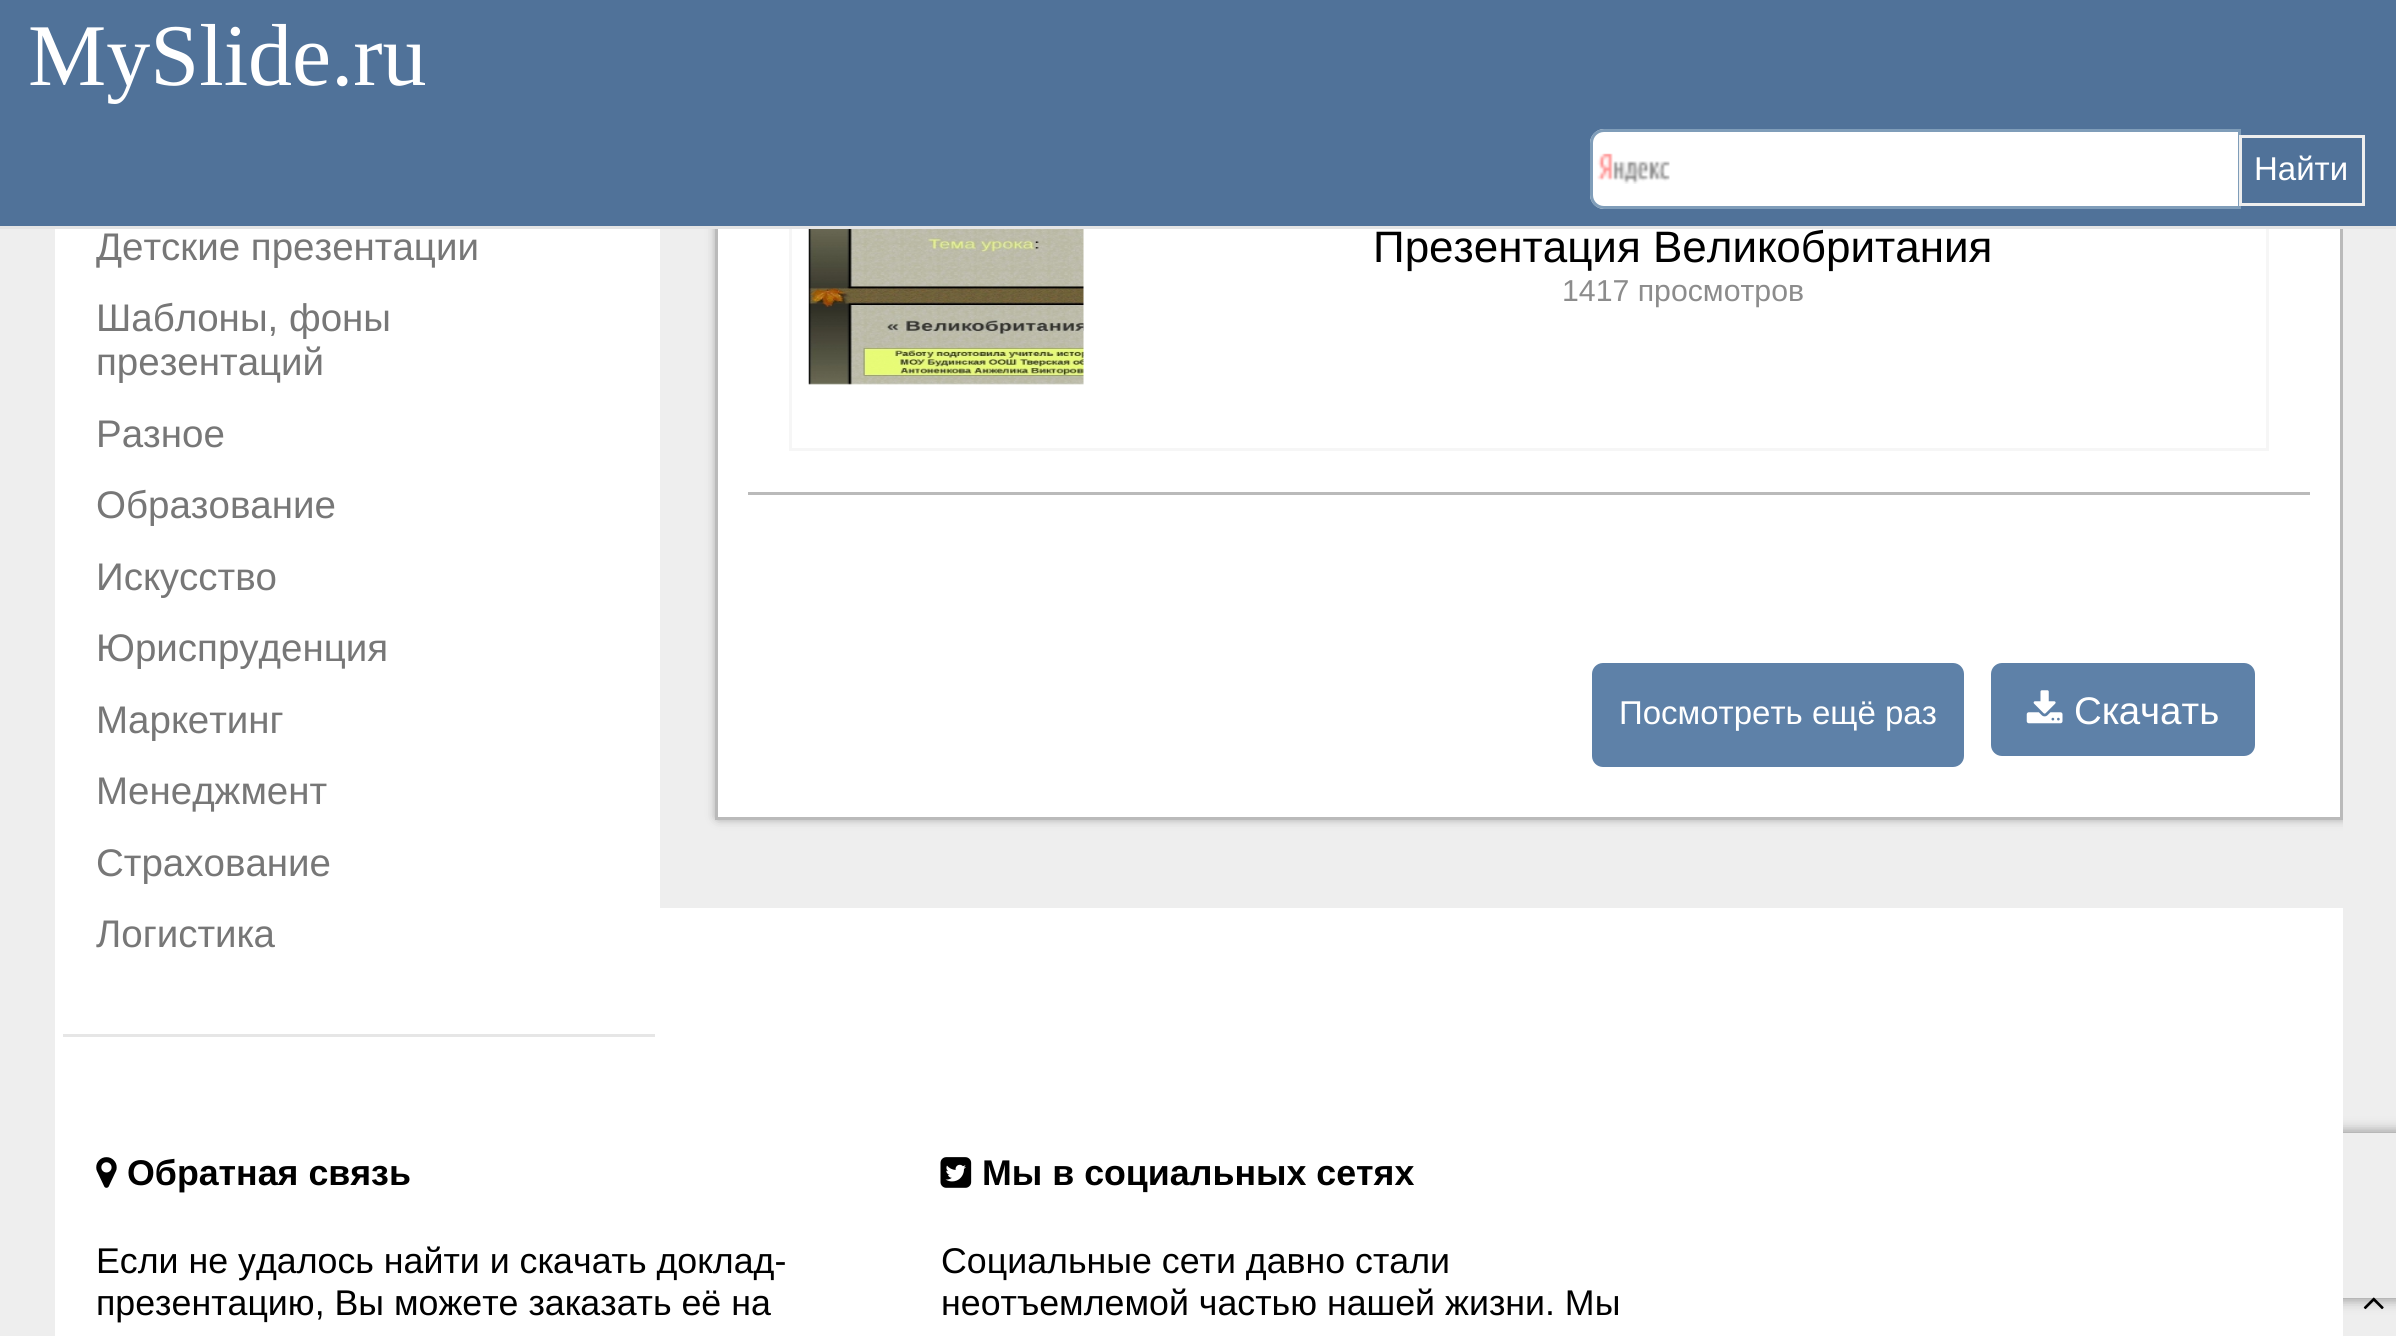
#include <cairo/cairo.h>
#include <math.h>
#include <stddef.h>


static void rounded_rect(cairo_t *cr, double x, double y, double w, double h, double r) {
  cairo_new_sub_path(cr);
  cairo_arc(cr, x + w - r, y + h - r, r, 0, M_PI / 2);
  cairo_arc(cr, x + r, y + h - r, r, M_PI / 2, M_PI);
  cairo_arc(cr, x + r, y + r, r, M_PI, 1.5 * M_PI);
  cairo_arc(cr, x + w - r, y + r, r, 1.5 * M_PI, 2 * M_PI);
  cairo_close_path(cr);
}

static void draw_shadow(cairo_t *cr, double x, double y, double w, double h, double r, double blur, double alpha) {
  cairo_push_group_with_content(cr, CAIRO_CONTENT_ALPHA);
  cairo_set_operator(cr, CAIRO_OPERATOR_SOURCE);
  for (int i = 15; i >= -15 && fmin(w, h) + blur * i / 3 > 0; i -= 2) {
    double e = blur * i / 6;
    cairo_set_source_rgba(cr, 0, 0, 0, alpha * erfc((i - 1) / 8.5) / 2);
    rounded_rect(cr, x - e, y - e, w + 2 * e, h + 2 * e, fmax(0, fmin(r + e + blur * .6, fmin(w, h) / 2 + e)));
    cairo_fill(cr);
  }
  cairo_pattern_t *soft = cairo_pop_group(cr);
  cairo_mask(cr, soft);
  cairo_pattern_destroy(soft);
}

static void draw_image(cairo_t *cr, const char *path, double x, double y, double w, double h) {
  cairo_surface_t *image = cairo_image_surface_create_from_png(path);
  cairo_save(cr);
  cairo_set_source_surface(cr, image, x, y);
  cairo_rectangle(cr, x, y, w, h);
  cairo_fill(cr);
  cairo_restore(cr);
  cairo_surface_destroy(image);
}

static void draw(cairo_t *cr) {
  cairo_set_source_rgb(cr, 238 / 255.0, 238 / 255.0, 238 / 255.0);
  cairo_paint(cr);
  cairo_set_source_rgb(cr, 1, 1, 1);
  cairo_rectangle(cr, 55, 908, 2288, 156);
  cairo_fill(cr);
  rounded_rect(cr, 55, -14, 605, 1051, 14);
  cairo_fill(cr);
  cairo_rectangle(cr, 718, 229, 1622, 588);
  cairo_fill(cr);
  cairo_save(cr);
  cairo_rectangle(cr, 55, 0, 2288, 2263);
  cairo_clip(cr);
  cairo_set_fill_rule(cr, CAIRO_FILL_RULE_EVEN_ODD);
  cairo_new_path(cr);
  cairo_move_to(cr, 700, 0);
  cairo_line_to(cr, 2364, 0);
  cairo_line_to(cr, 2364, 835);
  cairo_line_to(cr, 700, 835);
  cairo_close_path(cr);
  cairo_move_to(cr, 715, -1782);
  cairo_line_to(cr, 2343, -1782);
  cairo_line_to(cr, 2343, 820);
  cairo_line_to(cr, 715, 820);
  cairo_close_path(cr);
  cairo_clip(cr);
  cairo_set_source_rgb(cr, 0, 0, 0);
  draw_shadow(cr, 718, -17, 1628, 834, 0, 5.5, 0.5);
  cairo_restore(cr);
  cairo_rectangle(cr, 716.5, -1.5, 1625, 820);
  cairo_set_source_rgb(cr, 186 / 255.0, 186 / 255.0, 186 / 255.0);
  cairo_set_line_width(cr, 3);
  cairo_stroke(cr);
  cairo_rectangle(cr, 790.5, -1.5, 1477, 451);
  cairo_set_source_rgb(cr, 246 / 255.0, 246 / 255.0, 246 / 255.0);
  cairo_stroke(cr);
  cairo_set_source_rgb(cr, 80 / 255.0, 114 / 255.0, 153 / 255.0);
  cairo_rectangle(cr, 0, 0, 2396, 226);
  cairo_fill(cr);
  cairo_set_source_rgb(cr, 228 / 255.0, 228 / 255.0, 228 / 255.0);
  cairo_rectangle(cr, 0, 226, 2396, 3);
  cairo_fill(cr);
  cairo_set_source_rgb(cr, 1, 1, 1);
  cairo_new_path(cr);
  cairo_move_to(cr, 1604, 129);
  cairo_line_to(cr, 2241, 129);
  cairo_line_to(cr, 2241, 209);
  cairo_line_to(cr, 1604, 209);
  cairo_curve_to(cr, 1596.5, 209, 1590, 202.5, 1590, 195);
  cairo_line_to(cr, 1590, 143);
  cairo_curve_to(cr, 1590, 135.5, 1596.5, 129, 1604, 129);
  cairo_close_path(cr);
  cairo_fill(cr);
  draw_image(cr, "images/1.png", 1597, 153, 73, 31);
  cairo_new_path(cr);
  cairo_move_to(cr, 1604, 130.5);
  cairo_line_to(cr, 2239.5, 130.5);
  cairo_line_to(cr, 2239.5, 207.5);
  cairo_line_to(cr, 1604, 207.5);
  cairo_curve_to(cr, 1597, 207.5, 1591.5, 202, 1591.5, 195);
  cairo_line_to(cr, 1591.5, 143);
  cairo_curve_to(cr, 1591.5, 136, 1597, 130.5, 1604, 130.5);
  cairo_close_path(cr);
  cairo_set_source_rgb(cr, 127 / 255.0, 157 / 255.0, 185 / 255.0);
  cairo_stroke(cr);
  cairo_rectangle(cr, 2240.5, 136.5, 123, 68);
  cairo_set_source_rgb(cr, 238 / 255.0, 238 / 255.0, 238 / 255.0);
  cairo_stroke(cr);
  cairo_set_source_rgb(cr, 230 / 255.0, 230 / 255.0, 230 / 255.0);
  cairo_rectangle(cr, 63, 1034, 592, 3);
  cairo_fill(cr);
  draw_image(cr, "images/2.png", 808, 229, 276, 156);
  cairo_set_source_rgb(cr, 186 / 255.0, 186 / 255.0, 186 / 255.0);
  cairo_rectangle(cr, 748, 492, 1562, 3);
  cairo_fill(cr);
  cairo_set_source_rgb(cr, 94 / 255.0, 129 / 255.0, 168 / 255.0);
  rounded_rect(cr, 1593.5, 664.5, 369, 101, 9.5);
  cairo_fill_preserve(cr);
  cairo_stroke(cr);
  rounded_rect(cr, 1992.5, 664.5, 261, 90, 9.5);
  cairo_fill_preserve(cr);
  cairo_stroke(cr);
  draw_image(cr, "images/3.png", 2026, 690, 37, 34);
  cairo_save(cr);
  cairo_set_fill_rule(cr, CAIRO_FILL_RULE_EVEN_ODD);
  cairo_new_path(cr);
  cairo_move_to(cr, 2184, 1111);
  cairo_line_to(cr, 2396, 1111);
  cairo_line_to(cr, 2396, 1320);
  cairo_line_to(cr, 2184, 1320);
  cairo_close_path(cr);
  cairo_move_to(cr, 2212, 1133);
  cairo_line_to(cr, 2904, 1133);
  cairo_curve_to(cr, 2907.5, 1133, 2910, 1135.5, 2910, 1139);
  cairo_line_to(cr, 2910, 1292);
  cairo_curve_to(cr, 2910, 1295.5, 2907.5, 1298, 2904, 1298);
  cairo_line_to(cr, 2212, 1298);
  cairo_curve_to(cr, 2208.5, 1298, 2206, 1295.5, 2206, 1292);
  cairo_line_to(cr, 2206, 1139);
  cairo_curve_to(cr, 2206, 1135.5, 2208.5, 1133, 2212, 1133);
  cairo_close_path(cr);
  cairo_clip(cr);
  cairo_set_source_rgb(cr, 128 / 255.0, 128 / 255.0, 128 / 255.0);
  draw_shadow(cr, 2206, 1133, 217, 165, 6, 7, 1);
  cairo_restore(cr);
  cairo_set_source_rgb(cr, 1, 1, 1);
  cairo_rectangle(cr, 55, 1064, 2288, 272);
  cairo_fill(cr);
  draw_image(cr, "images/4.png", 96, 1157, 21, 31);
  draw_image(cr, "images/5.png", 940, 1157, 32, 31);
  draw_image(cr, "images/6.png", 2363, 1297, 21, 13);
  cairo_select_font_face(cr, "Liberation Serif", CAIRO_FONT_SLANT_NORMAL, CAIRO_FONT_WEIGHT_NORMAL);
  cairo_set_font_size(cr, 88);
  cairo_move_to(cr, 28, 85);
  cairo_show_text(cr, "MySlide.ru");
  cairo_select_font_face(cr, "Liberation Sans", CAIRO_FONT_SLANT_NORMAL, CAIRO_FONT_WEIGHT_NORMAL);
  cairo_set_font_size(cr, 33);
  cairo_move_to(cr, 2254, 180);
  cairo_show_text(cr, "Найти");
  cairo_set_font_size(cr, 38.5);
  cairo_set_source_rgb(cr, 119 / 255.0, 119 / 255.0, 119 / 255.0);
  cairo_move_to(cr, 96, 260);
  cairo_show_text(cr, "Детские презентации");
  cairo_move_to(cr, 96, 331);
  cairo_show_text(cr, "Шаблоны, фоны");
  cairo_move_to(cr, 96, 375);
  cairo_show_text(cr, "презентаций");
  cairo_move_to(cr, 96, 447);
  cairo_show_text(cr, "Разное");
  cairo_move_to(cr, 96, 518);
  cairo_show_text(cr, "Образование");
  cairo_move_to(cr, 96, 590);
  cairo_show_text(cr, "Искусство");
  cairo_move_to(cr, 96, 661);
  cairo_show_text(cr, "Юриспруденция");
  cairo_move_to(cr, 96, 733);
  cairo_show_text(cr, "Маркетинг");
  cairo_move_to(cr, 96, 804);
  cairo_show_text(cr, "Менеджмент");
  cairo_move_to(cr, 96, 876);
  cairo_show_text(cr, "Страхование");
  cairo_move_to(cr, 96, 947);
  cairo_show_text(cr, "Логистика");
  cairo_set_font_size(cr, 44);
  cairo_set_source_rgb(cr, 0, 0, 0);
  cairo_move_to(cr, 1373, 262);
  cairo_show_text(cr, "Презентация Великобритания");
  cairo_set_font_size(cr, 30.25);
  cairo_set_source_rgb(cr, 140 / 255.0, 140 / 255.0, 140 / 255.0);
  cairo_move_to(cr, 1562, 301);
  cairo_show_text(cr, "1417 просмотров");
  cairo_set_font_size(cr, 33);
  cairo_set_source_rgb(cr, 1, 1, 1);
  cairo_move_to(cr, 1619, 724);
  cairo_show_text(cr, "Посмотреть ещё раз");
  cairo_set_font_size(cr, 38.5);
  cairo_move_to(cr, 2074, 724);
  cairo_show_text(cr, "Скачать");
  cairo_select_font_face(cr, "Liberation Sans", CAIRO_FONT_SLANT_NORMAL, CAIRO_FONT_WEIGHT_BOLD);
  cairo_set_font_size(cr, 35.75);
  cairo_set_source_rgb(cr, 0, 0, 0);
  cairo_move_to(cr, 127, 1185);
  cairo_show_text(cr, "Обратная связь");
  cairo_select_font_face(cr, "Liberation Sans", CAIRO_FONT_SLANT_NORMAL, CAIRO_FONT_WEIGHT_NORMAL);
  cairo_move_to(cr, 96, 1273);
  cairo_show_text(cr, "Если не удалось найти и скачать доклад-");
  cairo_move_to(cr, 96, 1315);
  cairo_show_text(cr, "презентацию, Вы можете заказать её на");
  cairo_select_font_face(cr, "Liberation Sans", CAIRO_FONT_SLANT_NORMAL, CAIRO_FONT_WEIGHT_BOLD);
  cairo_move_to(cr, 982, 1185);
  cairo_show_text(cr, "Мы в социальных сетях");
  cairo_select_font_face(cr, "Liberation Sans", CAIRO_FONT_SLANT_NORMAL, CAIRO_FONT_WEIGHT_NORMAL);
  cairo_move_to(cr, 941, 1273);
  cairo_show_text(cr, "Социальные сети давно стали");
  cairo_move_to(cr, 941, 1315);
  cairo_show_text(cr, "неотъемлемой частью нашей жизни. Мы");
}

int main(void) {
  cairo_surface_t *surface = cairo_image_surface_create(CAIRO_FORMAT_RGB24, 2396, 1336);
  cairo_t *cr = cairo_create(surface);
  cairo_font_options_t *options = cairo_font_options_create();
  cairo_font_options_set_hint_metrics(options, CAIRO_HINT_METRICS_OFF);
  cairo_font_options_set_hint_style(options, CAIRO_HINT_STYLE_NONE);
  cairo_set_font_options(cr, options);
  cairo_set_miter_limit(cr, 4);
  draw(cr);
  cairo_surface_write_to_png(surface, "out.png");
  cairo_font_options_destroy(options);
  cairo_destroy(cr);
  cairo_surface_destroy(surface);
  return 0;
}
